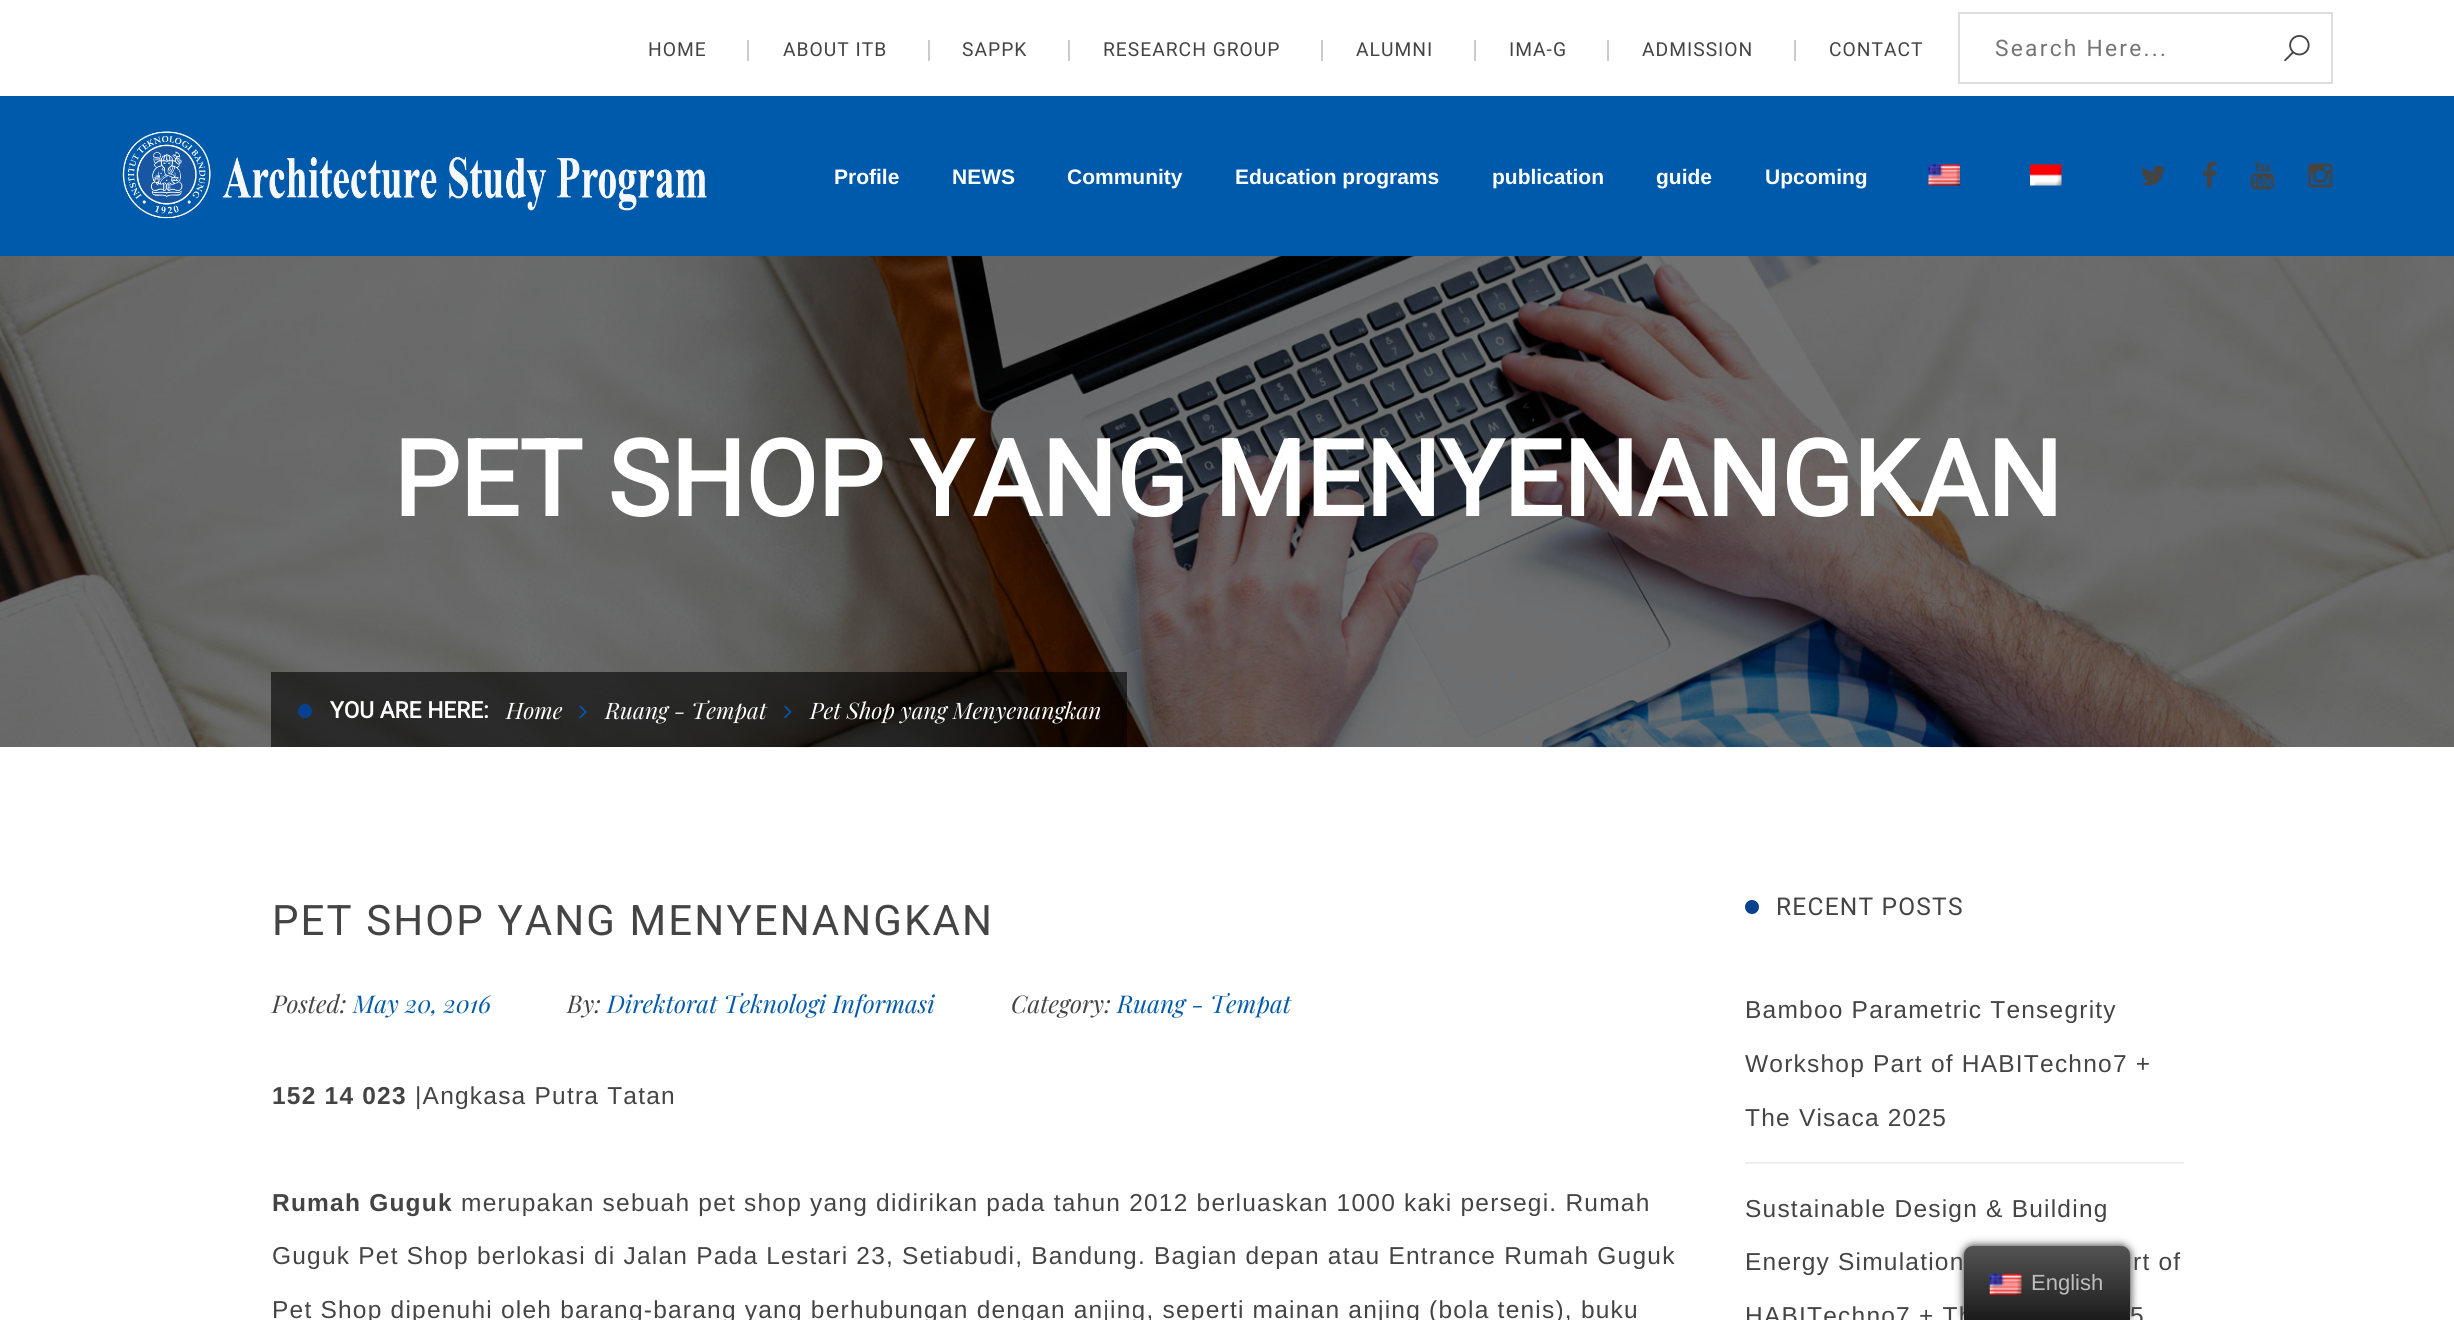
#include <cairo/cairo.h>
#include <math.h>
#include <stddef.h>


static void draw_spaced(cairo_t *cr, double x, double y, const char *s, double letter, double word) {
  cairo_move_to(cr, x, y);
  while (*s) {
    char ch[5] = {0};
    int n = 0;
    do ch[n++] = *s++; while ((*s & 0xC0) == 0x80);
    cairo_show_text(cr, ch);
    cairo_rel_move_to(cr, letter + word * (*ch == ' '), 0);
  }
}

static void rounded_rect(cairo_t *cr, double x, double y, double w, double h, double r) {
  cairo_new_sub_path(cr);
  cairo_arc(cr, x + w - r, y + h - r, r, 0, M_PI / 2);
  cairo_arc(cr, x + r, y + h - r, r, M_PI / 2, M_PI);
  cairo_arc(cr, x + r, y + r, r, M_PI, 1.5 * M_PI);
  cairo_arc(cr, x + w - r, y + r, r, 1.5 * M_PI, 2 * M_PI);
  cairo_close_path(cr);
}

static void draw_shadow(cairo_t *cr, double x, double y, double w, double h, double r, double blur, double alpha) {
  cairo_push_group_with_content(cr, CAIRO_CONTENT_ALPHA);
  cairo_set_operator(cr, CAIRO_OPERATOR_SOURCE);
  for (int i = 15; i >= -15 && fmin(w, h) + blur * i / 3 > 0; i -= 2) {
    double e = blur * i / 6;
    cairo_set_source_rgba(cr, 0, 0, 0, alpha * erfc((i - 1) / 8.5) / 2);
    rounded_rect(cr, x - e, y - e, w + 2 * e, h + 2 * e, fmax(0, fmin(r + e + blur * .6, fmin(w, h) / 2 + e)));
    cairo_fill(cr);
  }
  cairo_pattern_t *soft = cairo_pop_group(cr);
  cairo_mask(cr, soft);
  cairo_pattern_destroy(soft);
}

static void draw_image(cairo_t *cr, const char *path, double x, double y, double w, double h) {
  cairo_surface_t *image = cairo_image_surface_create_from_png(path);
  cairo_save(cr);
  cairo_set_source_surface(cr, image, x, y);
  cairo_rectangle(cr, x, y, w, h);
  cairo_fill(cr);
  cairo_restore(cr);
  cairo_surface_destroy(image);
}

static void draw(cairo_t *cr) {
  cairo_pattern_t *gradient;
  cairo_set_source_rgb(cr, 1, 1, 1);
  cairo_paint(cr);
  cairo_set_source_rgb(cr, 0, 90 / 255.0, 171 / 255.0);
  cairo_rectangle(cr, 0, 96, 2454, 160);
  cairo_fill(cr);
  cairo_set_source_rgb(cr, 204 / 255.0, 204 / 255.0, 204 / 255.0);
  cairo_rectangle(cr, 747, 40, 2, 21);
  cairo_fill(cr);
  cairo_rectangle(cr, 928, 40, 2, 21);
  cairo_fill(cr);
  cairo_rectangle(cr, 1068, 40, 2, 21);
  cairo_fill(cr);
  cairo_rectangle(cr, 1321, 40, 2, 21);
  cairo_fill(cr);
  cairo_rectangle(cr, 1474, 40, 2, 21);
  cairo_fill(cr);
  cairo_rectangle(cr, 1607, 40, 2, 21);
  cairo_fill(cr);
  cairo_rectangle(cr, 1794, 40, 2, 21);
  cairo_fill(cr);
  cairo_rectangle(cr, 1959, 13, 373, 70);
  cairo_set_source_rgb(cr, 221 / 255.0, 221 / 255.0, 221 / 255.0);
  cairo_stroke(cr);
  draw_image(cr, "images/1.png", 2284, 35, 26, 27);
  draw_image(cr, "images/2.png", 122, 131, 585, 88);
  draw_image(cr, "images/3.png", 1928, 164, 32, 22);
  draw_image(cr, "images/4.png", 2030, 164, 32, 22);
  draw_image(cr, "images/5.png", 2141, 165, 25, 21);
  draw_image(cr, "images/6.png", 2203, 161, 14, 27);
  draw_image(cr, "images/7.png", 2250, 161, 25, 29);
  draw_image(cr, "images/8.png", 2308, 163, 25, 25);
  draw_image(cr, "images/9.png", 0, 256, 2454, 492);
  cairo_set_source_rgba(cr, 0, 0, 0, 0.6);
  cairo_rectangle(cr, 271, 672, 856, 75);
  cairo_fill(cr);
  cairo_set_source_rgb(cr, 8 / 255.0, 66 / 255.0, 142 / 255.0);
  cairo_arc(cr, 305, 711, 7, 0, 2 * M_PI);
  cairo_fill(cr);
  draw_image(cr, "images/10.png", 579, 705, 8, 14);
  draw_image(cr, "images/11.png", 784, 705, 8, 14);
  cairo_arc(cr, 1752, 907, 7, 0, 2 * M_PI);
  cairo_fill(cr);
  cairo_set_source_rgb(cr, 238 / 255.0, 238 / 255.0, 238 / 255.0);
  cairo_rectangle(cr, 1745, 1162, 439, 2);
  cairo_fill(cr);
  cairo_set_source_rgb(cr, 33 / 255.0, 33 / 255.0, 33 / 255.0);
  draw_shadow(cr, 1964, 1246, 166, 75, 9, 4.5, 1);
  cairo_select_font_face(cr, "Roboto", CAIRO_FONT_SLANT_NORMAL, CAIRO_FONT_WEIGHT_NORMAL);
  cairo_set_font_size(cr, 19.25);
  cairo_set_source_rgb(cr, 68 / 255.0, 68 / 255.0, 68 / 255.0);
  draw_spaced(cr, 648, 56, "HOME", 1, 0);
  draw_spaced(cr, 783, 56, "ABOUT ITB", 1, 0);
  draw_spaced(cr, 962, 56, "SAPPK", 1, 0);
  draw_spaced(cr, 1103, 56, "RESEARCH GROUP", 1, 0);
  draw_spaced(cr, 1356, 56, "ALUMNI", 1, 0);
  draw_spaced(cr, 1509, 56, "IMA-G", 1, 0);
  draw_spaced(cr, 1642, 56, "ADMISSION", 1, 0);
  draw_spaced(cr, 1829, 56, "CONTACT", 1, 0);
  cairo_set_font_size(cr, 22.75);
  cairo_set_source_rgb(cr, 117 / 255.0, 117 / 255.0, 117 / 255.0);
  draw_spaced(cr, 1995, 56, "Search Here...", 2.25, 0);
  cairo_select_font_face(cr, "Liberation Sans", CAIRO_FONT_SLANT_NORMAL, CAIRO_FONT_WEIGHT_BOLD);
  cairo_set_font_size(cr, 21);
  cairo_set_source_rgb(cr, 1, 1, 1);
  cairo_move_to(cr, 834, 184);
  cairo_show_text(cr, "Profile");
  cairo_move_to(cr, 952, 184);
  cairo_show_text(cr, "NEWS");
  cairo_move_to(cr, 1067, 184);
  cairo_show_text(cr, "Community");
  cairo_move_to(cr, 1235, 184);
  cairo_show_text(cr, "Education programs");
  cairo_move_to(cr, 1492, 184);
  cairo_show_text(cr, "publication");
  cairo_move_to(cr, 1656, 184);
  cairo_show_text(cr, "guide");
  cairo_move_to(cr, 1765, 184);
  cairo_show_text(cr, "Upcoming");
  cairo_select_font_face(cr, "Roboto", CAIRO_FONT_SLANT_NORMAL, CAIRO_FONT_WEIGHT_BOLD);
  cairo_set_font_size(cr, 105);
  cairo_move_to(cr, 393, 516);
  cairo_show_text(cr, "PET SHOP YANG MENYENANGKAN");
  cairo_set_font_size(cr, 22.75);
  cairo_move_to(cr, 330, 718);
  cairo_show_text(cr, "YOU ARE HERE:");
  cairo_select_font_face(cr, "Playfair Display", CAIRO_FONT_SLANT_ITALIC, CAIRO_FONT_WEIGHT_NORMAL);
  cairo_move_to(cr, 506, 719);
  cairo_show_text(cr, "Home");
  cairo_move_to(cr, 605, 719);
  cairo_show_text(cr, "Ruang - Tempat");
  cairo_move_to(cr, 810, 719);
  cairo_show_text(cr, "Pet Shop yang Menyenangkan");
  cairo_select_font_face(cr, "Roboto", CAIRO_FONT_SLANT_NORMAL, CAIRO_FONT_WEIGHT_NORMAL);
  cairo_set_font_size(cr, 42);
  cairo_set_source_rgb(cr, 68 / 255.0, 68 / 255.0, 68 / 255.0);
  draw_spaced(cr, 272, 935, "PET SHOP YANG MENYENANGKAN", 2.1, 0);
  cairo_select_font_face(cr, "Playfair Display", CAIRO_FONT_SLANT_ITALIC, CAIRO_FONT_WEIGHT_NORMAL);
  cairo_set_font_size(cr, 24.5);
  cairo_move_to(cr, 272, 1013);
  cairo_show_text(cr, "Posted:");
  cairo_set_source_rgb(cr, 0, 90 / 255.0, 171 / 255.0);
  cairo_move_to(cr, 353, 1013);
  cairo_show_text(cr, "May 20, 2016");
  cairo_set_source_rgb(cr, 68 / 255.0, 68 / 255.0, 68 / 255.0);
  cairo_move_to(cr, 567, 1013);
  cairo_show_text(cr, "By:");
  cairo_set_source_rgb(cr, 0, 90 / 255.0, 171 / 255.0);
  cairo_move_to(cr, 607, 1013);
  cairo_show_text(cr, "Direktorat Teknologi Informasi");
  cairo_set_source_rgb(cr, 68 / 255.0, 68 / 255.0, 68 / 255.0);
  cairo_move_to(cr, 1011, 1013);
  cairo_show_text(cr, "Category:");
  cairo_set_source_rgb(cr, 0, 90 / 255.0, 171 / 255.0);
  cairo_move_to(cr, 1117, 1013);
  cairo_show_text(cr, "Ruang - Tempat");
  cairo_select_font_face(cr, "Liberation Sans", CAIRO_FONT_SLANT_NORMAL, CAIRO_FONT_WEIGHT_BOLD);
  cairo_set_source_rgb(cr, 68 / 255.0, 68 / 255.0, 68 / 255.0);
  draw_spaced(cr, 272, 1104, "152 14 023", 1.22, 0);
  cairo_select_font_face(cr, "Liberation Sans", CAIRO_FONT_SLANT_NORMAL, CAIRO_FONT_WEIGHT_NORMAL);
  draw_spaced(cr, 415, 1104, "|Angkasa Putra Tatan", 1.22, 0);
  cairo_select_font_face(cr, "Liberation Sans", CAIRO_FONT_SLANT_NORMAL, CAIRO_FONT_WEIGHT_BOLD);
  draw_spaced(cr, 272, 1211, "Rumah Guguk", 1.22, 0);
  cairo_select_font_face(cr, "Liberation Sans", CAIRO_FONT_SLANT_NORMAL, CAIRO_FONT_WEIGHT_NORMAL);
  draw_spaced(cr, 461, 1211, "merupakan sebuah pet shop yang didirikan pada tahun 2012 berluaskan 1000 kaki persegi. Rumah", 1.22, 0);
  draw_spaced(cr, 272, 1264, "Guguk Pet Shop berlokasi di Jalan Pada Lestari 23, Setiabudi, Bandung. Bagian depan atau Entrance Rumah Guguk", 1.22, 0);
  draw_spaced(cr, 272, 1318, "Pet Shop dipenuhi oleh barang-barang yang berhubungan dengan anjing, seperti mainan anjing (bola tenis), buku", 1.22, 0);
  cairo_select_font_face(cr, "Roboto", CAIRO_FONT_SLANT_NORMAL, CAIRO_FONT_WEIGHT_NORMAL);
  draw_spaced(cr, 1776, 915, "RECENT POSTS", 1.22, 0);
  cairo_select_font_face(cr, "Liberation Sans", CAIRO_FONT_SLANT_NORMAL, CAIRO_FONT_WEIGHT_NORMAL);
  draw_spaced(cr, 1745, 1018, "Bamboo Parametric Tensegrity", 1.22, 0);
  draw_spaced(cr, 1745, 1072, "Workshop Part of HABITechno7 +", 1.22, 0);
  draw_spaced(cr, 1745, 1126, "The Visaca 2025", 1.22, 0);
  draw_spaced(cr, 1745, 1217, "Sustainable Design & Building", 1.22, 0);
  draw_spaced(cr, 1745, 1270, "Energy Simulation", 1.22, 0);
  draw_spaced(cr, 2133, 1270, "rt of", 1.22, 0);
  draw_spaced(cr, 1745, 1324, "HABITechno7 + Th", 1.22, 0);
  draw_spaced(cr, 2130, 1324, "5", 1.22, 0);
  gradient = cairo_pattern_create_linear(2047, 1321, 2047, 1246);
  cairo_pattern_add_color_stop_rgba(gradient, 0, 27 / 255.0, 27 / 255.0, 27 / 255.0, 1);
  cairo_pattern_add_color_stop_rgba(gradient, 1, 84 / 255.0, 84 / 255.0, 84 / 255.0, 1);
  cairo_set_source(cr, gradient);
  cairo_pattern_destroy(gradient);
  cairo_new_path(cr);
  cairo_move_to(cr, 1973, 1246);
  cairo_line_to(cr, 2121, 1246);
  cairo_curve_to(cr, 2126, 1246, 2130, 1250, 2130, 1255);
  cairo_line_to(cr, 2130, 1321);
  cairo_line_to(cr, 1964, 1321);
  cairo_line_to(cr, 1964, 1255);
  cairo_curve_to(cr, 1964, 1250, 1968, 1246, 1973, 1246);
  cairo_close_path(cr);
  cairo_fill(cr);
  draw_image(cr, "images/12.png", 1989, 1273, 33, 22);
  cairo_set_font_size(cr, 22);
  cairo_set_source_rgb(cr, 189 / 255.0, 189 / 255.0, 189 / 255.0);
  cairo_move_to(cr, 2031, 1290);
  cairo_show_text(cr, "English");
}

int main(void) {
  cairo_surface_t *surface = cairo_image_surface_create(CAIRO_FORMAT_RGB24, 2454, 1320);
  cairo_t *cr = cairo_create(surface);
  cairo_font_options_t *options = cairo_font_options_create();
  cairo_font_options_set_hint_metrics(options, CAIRO_HINT_METRICS_OFF);
  cairo_font_options_set_hint_style(options, CAIRO_HINT_STYLE_NONE);
  cairo_set_font_options(cr, options);
  cairo_set_miter_limit(cr, 4);
  draw(cr);
  cairo_surface_write_to_png(surface, "out.png");
  cairo_font_options_destroy(options);
  cairo_destroy(cr);
  cairo_surface_destroy(surface);
  return 0;
}
